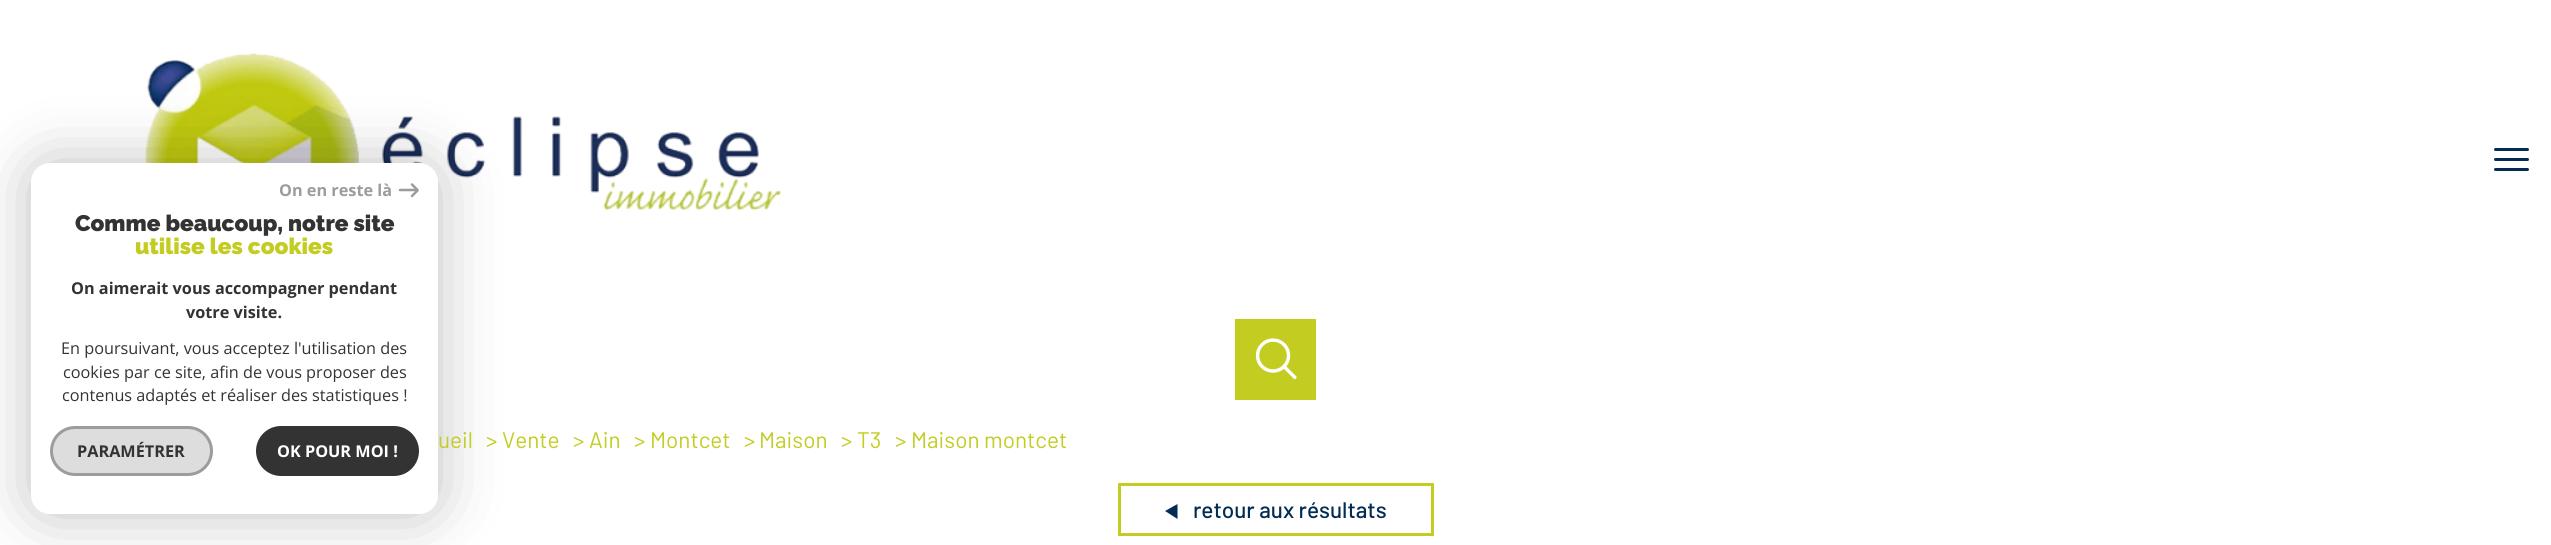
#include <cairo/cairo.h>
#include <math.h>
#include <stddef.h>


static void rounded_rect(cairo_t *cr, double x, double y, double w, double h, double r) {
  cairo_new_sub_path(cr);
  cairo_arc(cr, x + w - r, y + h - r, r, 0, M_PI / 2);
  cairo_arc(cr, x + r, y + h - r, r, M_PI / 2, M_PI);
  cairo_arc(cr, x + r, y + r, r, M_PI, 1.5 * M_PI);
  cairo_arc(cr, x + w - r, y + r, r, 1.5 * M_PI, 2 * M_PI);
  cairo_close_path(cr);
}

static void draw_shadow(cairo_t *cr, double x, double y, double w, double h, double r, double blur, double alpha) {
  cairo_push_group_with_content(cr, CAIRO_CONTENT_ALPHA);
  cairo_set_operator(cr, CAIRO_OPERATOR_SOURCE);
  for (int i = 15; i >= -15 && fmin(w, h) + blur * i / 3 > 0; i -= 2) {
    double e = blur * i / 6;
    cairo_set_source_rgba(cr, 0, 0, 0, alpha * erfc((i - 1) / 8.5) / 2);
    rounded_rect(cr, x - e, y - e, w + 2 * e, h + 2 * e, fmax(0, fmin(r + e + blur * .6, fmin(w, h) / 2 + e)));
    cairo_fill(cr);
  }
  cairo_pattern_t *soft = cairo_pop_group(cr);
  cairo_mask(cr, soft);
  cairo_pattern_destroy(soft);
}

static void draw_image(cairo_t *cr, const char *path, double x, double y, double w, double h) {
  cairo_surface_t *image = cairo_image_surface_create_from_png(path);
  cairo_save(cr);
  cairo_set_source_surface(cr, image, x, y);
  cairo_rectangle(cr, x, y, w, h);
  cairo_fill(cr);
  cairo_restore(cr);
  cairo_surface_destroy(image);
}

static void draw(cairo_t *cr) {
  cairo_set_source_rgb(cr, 1, 1, 1);
  cairo_paint(cr);
  draw_image(cr, "images/1.png", 145, 53, 637, 158);
  cairo_set_source_rgb(cr, 2 / 255.0, 44 / 255.0, 84 / 255.0);
  rounded_rect(cr, 2494, 158, 35, 3, 1.5);
  cairo_fill(cr);
  rounded_rect(cr, 2494, 148, 35, 3, 1.5);
  cairo_fill(cr);
  rounded_rect(cr, 2494, 168, 35, 3, 1.5);
  cairo_fill(cr);
  cairo_set_source_rgb(cr, 0, 0, 0);
  draw_shadow(cr, 31, 163, 407, 351, 19, 31, 0.25);
  cairo_set_source_rgb(cr, 1, 1, 1);
  rounded_rect(cr, 31, 163, 407, 351, 19);
  cairo_fill(cr);
  cairo_new_path(cr);
  cairo_move_to(cr, 400, 190);
  cairo_line_to(cr, 417.5, 190);
  cairo_move_to(cr, 412, 184.5);
  cairo_line_to(cr, 417.5, 190);
  cairo_move_to(cr, 412, 196);
  cairo_line_to(cr, 417.5, 190.5);
  cairo_set_source_rgb(cr, 156 / 255.0, 156 / 255.0, 156 / 255.0);
  cairo_set_line_width(cr, 2.5);
  cairo_set_line_cap(cr, CAIRO_LINE_CAP_ROUND);
  cairo_stroke(cr);
  cairo_set_source_rgb(cr, 221 / 255.0, 221 / 255.0, 221 / 255.0);
  rounded_rect(cr, 51.5, 427.5, 160, 47, 23.5);
  cairo_fill_preserve(cr);
  cairo_set_source_rgb(cr, 156 / 255.0, 156 / 255.0, 156 / 255.0);
  cairo_set_line_width(cr, 3);
  cairo_set_line_cap(cr, CAIRO_LINE_CAP_BUTT);
  cairo_stroke(cr);
  cairo_set_source_rgb(cr, 51 / 255.0, 51 / 255.0, 51 / 255.0);
  rounded_rect(cr, 257.5, 427.5, 160, 47, 23.5);
  cairo_fill_preserve(cr);
  cairo_stroke(cr);
  cairo_set_source_rgb(cr, 195 / 255.0, 204 / 255.0, 33 / 255.0);
  cairo_rectangle(cr, 1235, 319, 81, 81);
  cairo_fill(cr);
  draw_image(cr, "images/2.png", 1255, 338, 42, 42);
  cairo_rectangle(cr, 1119.5, 484.5, 313, 50);
  cairo_stroke(cr);
  cairo_set_source_rgb(cr, 2 / 255.0, 44 / 255.0, 84 / 255.0);
  cairo_new_path(cr);
  cairo_move_to(cr, 1165, 511);
  cairo_line_to(cr, 1177.5, 504);
  cairo_line_to(cr, 1177.5, 519);
  cairo_close_path(cr);
  cairo_fill(cr);
  cairo_select_font_face(cr, "Open Sans", CAIRO_FONT_SLANT_NORMAL, CAIRO_FONT_WEIGHT_BOLD);
  cairo_set_font_size(cr, 16.25);
  cairo_set_source_rgb(cr, 156 / 255.0, 156 / 255.0, 156 / 255.0);
  cairo_move_to(cr, 279, 196);
  cairo_show_text(cr, "On en reste là");
  cairo_select_font_face(cr, "Raleway Thin", CAIRO_FONT_SLANT_NORMAL, CAIRO_FONT_WEIGHT_NORMAL);
  cairo_set_font_size(cr, 22.5);
  cairo_set_source_rgb(cr, 51 / 255.0, 51 / 255.0, 51 / 255.0);
  cairo_move_to(cr, 75, 231);
  cairo_show_text(cr, "Comme beaucoup, notre site");
  cairo_set_source_rgb(cr, 195 / 255.0, 204 / 255.0, 33 / 255.0);
  cairo_move_to(cr, 135, 254);
  cairo_show_text(cr, "utilise les cookies");
  cairo_select_font_face(cr, "Open Sans", CAIRO_FONT_SLANT_NORMAL, CAIRO_FONT_WEIGHT_BOLD);
  cairo_set_font_size(cr, 16.25);
  cairo_set_source_rgb(cr, 51 / 255.0, 51 / 255.0, 51 / 255.0);
  cairo_move_to(cr, 71, 294);
  cairo_show_text(cr, "On aimerait vous accompagner pendant");
  cairo_move_to(cr, 186, 318);
  cairo_show_text(cr, "votre visite.");
  cairo_select_font_face(cr, "Open Sans", CAIRO_FONT_SLANT_NORMAL, CAIRO_FONT_WEIGHT_NORMAL);
  cairo_move_to(cr, 61, 354);
  cairo_show_text(cr, "En poursuivant, vous acceptez l'utilisation des");
  cairo_move_to(cr, 63, 378);
  cairo_show_text(cr, "cookies par ce site, afin de vous proposer des");
  cairo_move_to(cr, 62, 401);
  cairo_show_text(cr, "contenus adaptés et réaliser des statistiques !");
  cairo_select_font_face(cr, "Open Sans", CAIRO_FONT_SLANT_NORMAL, CAIRO_FONT_WEIGHT_BOLD);
  cairo_move_to(cr, 77, 457);
  cairo_show_text(cr, "PARAMÉTRER");
  cairo_set_source_rgb(cr, 1, 1, 1);
  cairo_move_to(cr, 277, 457);
  cairo_show_text(cr, "OK POUR MOI !");
  cairo_select_font_face(cr, "Barlow", CAIRO_FONT_SLANT_NORMAL, CAIRO_FONT_WEIGHT_NORMAL);
  cairo_set_font_size(cr, 22.5);
  cairo_set_source_rgb(cr, 195 / 255.0, 204 / 255.0, 33 / 255.0);
  cairo_move_to(cr, 438, 448);
  cairo_show_text(cr, "ueil");
  cairo_move_to(cr, 486, 448);
  cairo_show_text(cr, ">");
  cairo_move_to(cr, 502, 448);
  cairo_show_text(cr, "Vente");
  cairo_move_to(cr, 573, 448);
  cairo_show_text(cr, ">");
  cairo_move_to(cr, 589, 448);
  cairo_show_text(cr, "Ain");
  cairo_move_to(cr, 634, 448);
  cairo_show_text(cr, ">");
  cairo_move_to(cr, 650, 448);
  cairo_show_text(cr, "Montcet");
  cairo_move_to(cr, 744, 448);
  cairo_show_text(cr, ">");
  cairo_move_to(cr, 759, 448);
  cairo_show_text(cr, "Maison");
  cairo_move_to(cr, 841, 448);
  cairo_show_text(cr, ">");
  cairo_move_to(cr, 857, 448);
  cairo_show_text(cr, "T3");
  cairo_move_to(cr, 895, 448);
  cairo_show_text(cr, ">");
  cairo_move_to(cr, 911, 448);
  cairo_show_text(cr, "Maison montcet");
  cairo_select_font_face(cr, "Barlow Medium", CAIRO_FONT_SLANT_NORMAL, CAIRO_FONT_WEIGHT_NORMAL);
  cairo_set_source_rgb(cr, 2 / 255.0, 44 / 255.0, 84 / 255.0);
  cairo_move_to(cr, 1193, 518);
  cairo_show_text(cr, "retour aux résultats");
}

int main(void) {
  cairo_surface_t *surface = cairo_image_surface_create(CAIRO_FORMAT_RGB24, 2551, 545);
  cairo_t *cr = cairo_create(surface);
  cairo_font_options_t *options = cairo_font_options_create();
  cairo_font_options_set_hint_metrics(options, CAIRO_HINT_METRICS_OFF);
  cairo_font_options_set_hint_style(options, CAIRO_HINT_STYLE_NONE);
  cairo_set_font_options(cr, options);
  cairo_set_miter_limit(cr, 4);
  draw(cr);
  cairo_surface_write_to_png(surface, "out.png");
  cairo_font_options_destroy(options);
  cairo_destroy(cr);
  cairo_surface_destroy(surface);
  return 0;
}
